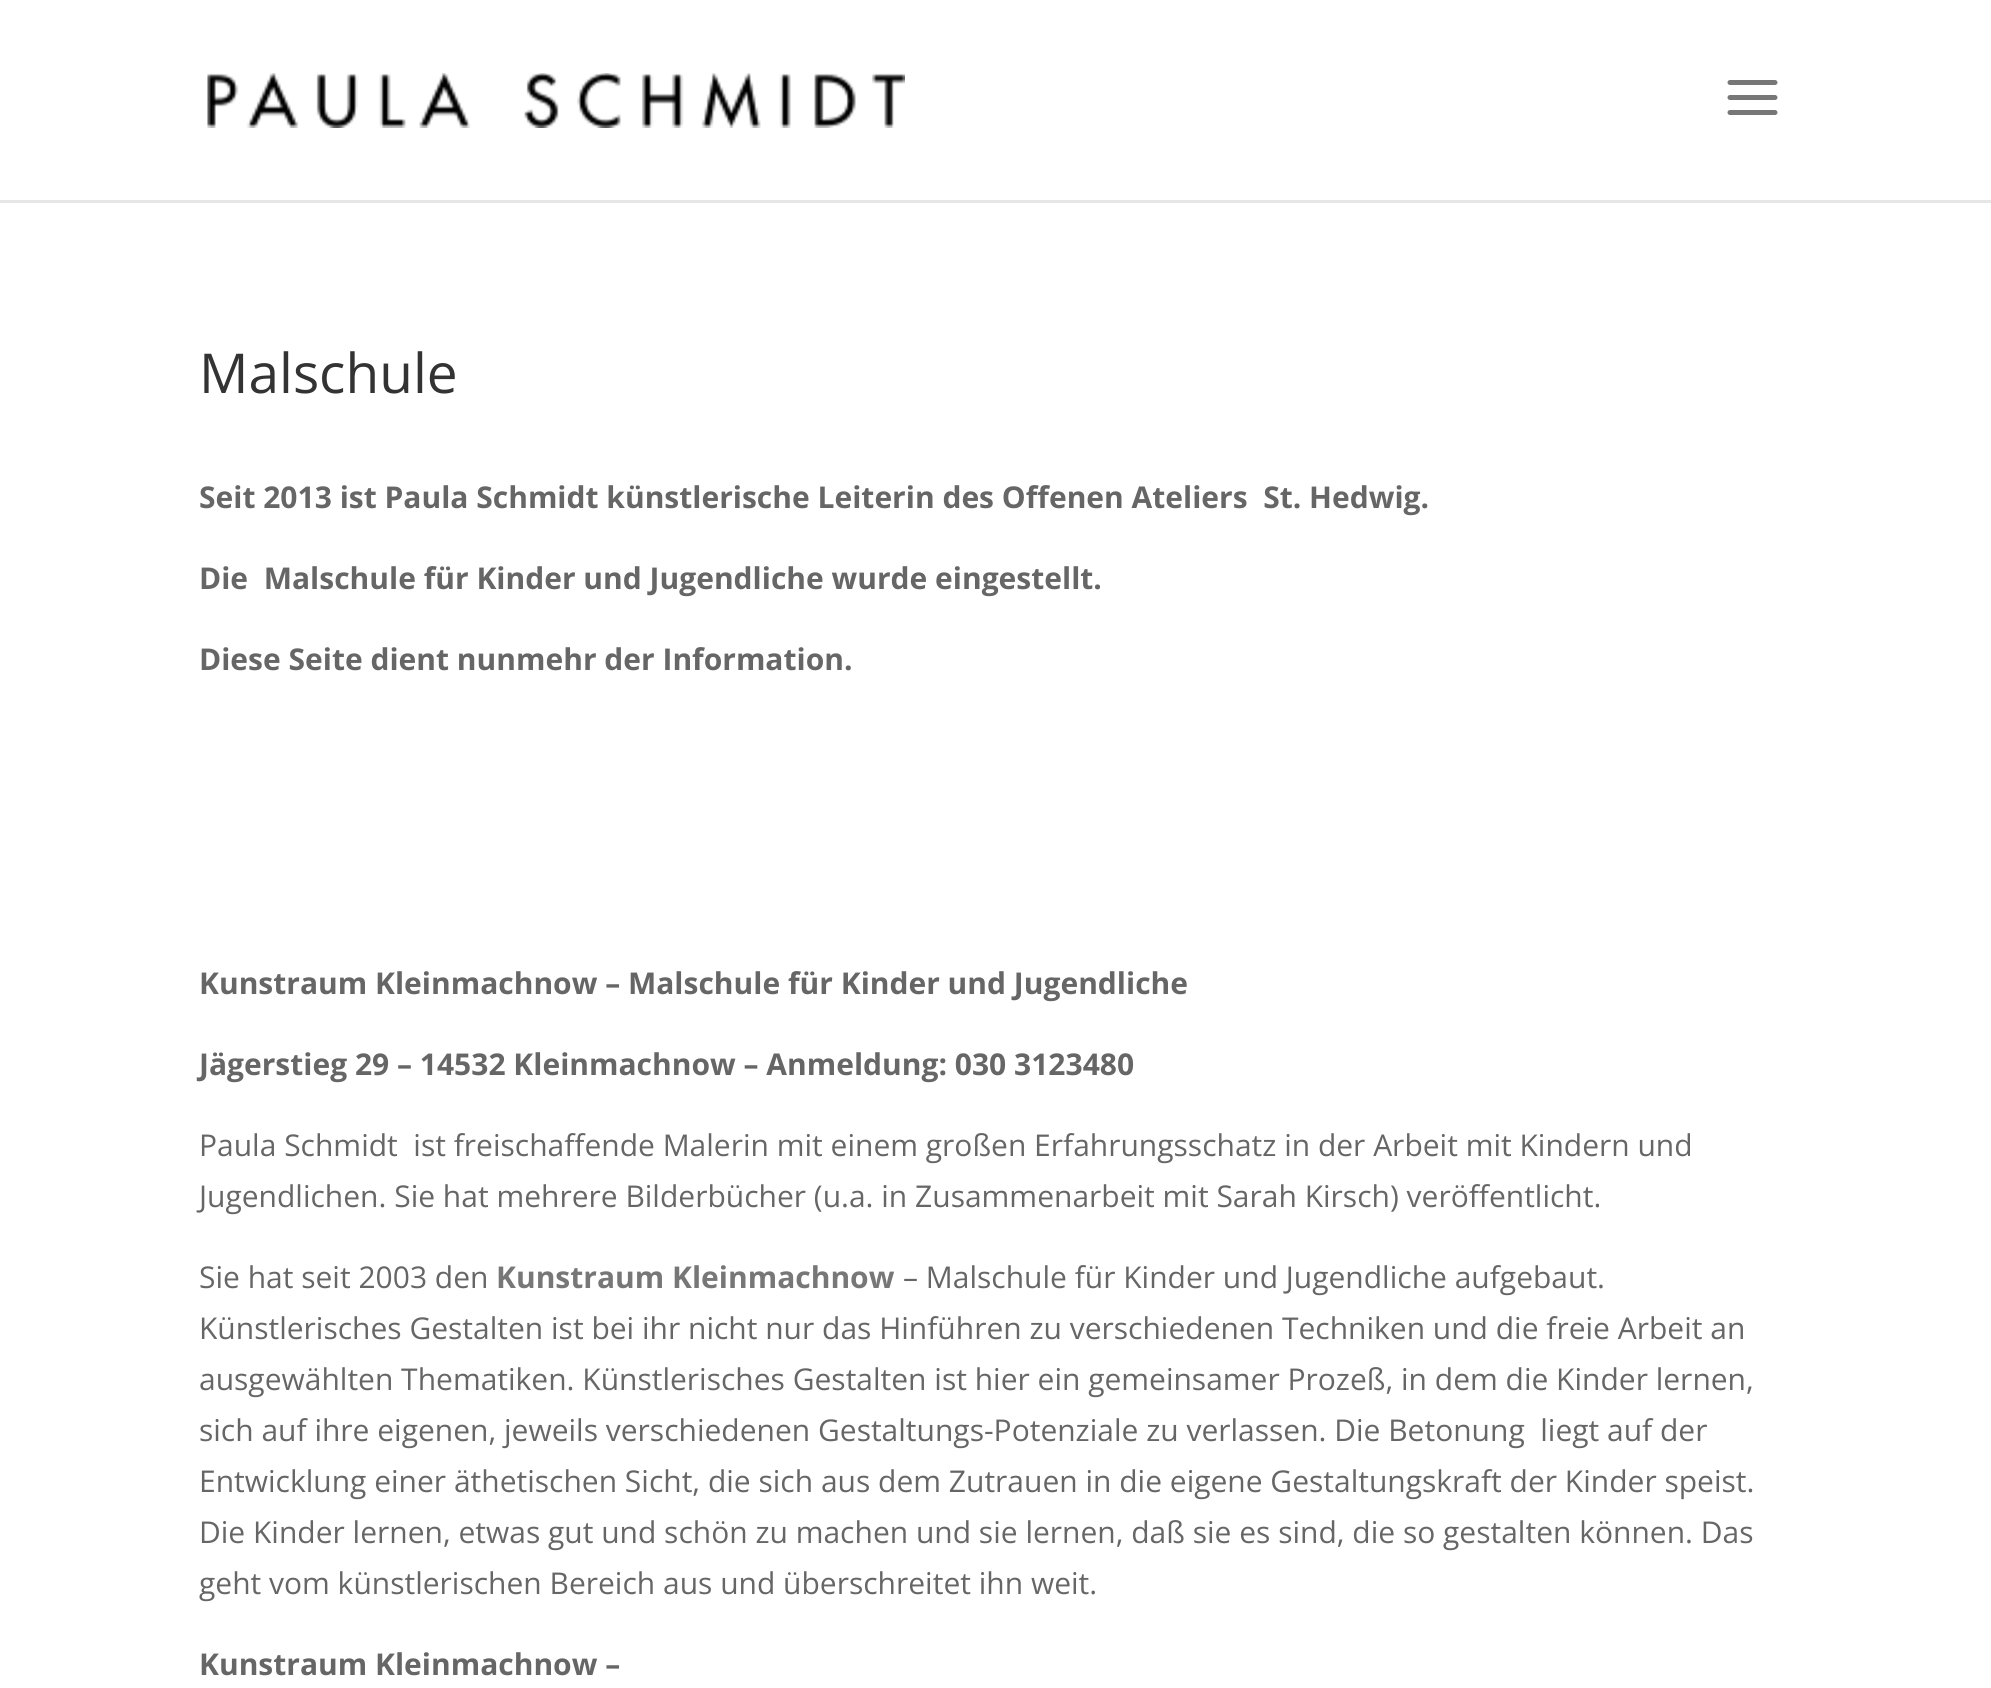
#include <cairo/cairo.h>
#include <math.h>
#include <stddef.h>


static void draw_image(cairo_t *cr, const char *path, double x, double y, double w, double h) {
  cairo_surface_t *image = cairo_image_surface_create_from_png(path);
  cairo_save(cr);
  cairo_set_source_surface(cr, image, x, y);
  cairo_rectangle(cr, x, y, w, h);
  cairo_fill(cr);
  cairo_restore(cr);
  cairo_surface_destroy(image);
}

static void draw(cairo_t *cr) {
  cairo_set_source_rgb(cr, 1, 1, 1);
  cairo_paint(cr);
  cairo_set_source_rgb(cr, 230 / 255.0, 230 / 255.0, 230 / 255.0);
  cairo_new_path(cr);
  cairo_move_to(cr, 0, 200);
  cairo_line_to(cr, 0, 203);
  cairo_line_to(cr, 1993, 203);
  cairo_line_to(cr, 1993, 3);
  cairo_line_to(cr, 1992, 3);
  cairo_line_to(cr, 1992, 200);
  cairo_close_path(cr);
  cairo_fill(cr);
  draw_image(cr, "images/1.png", 207, 73, 698, 55);
  draw_image(cr, "images/2.png", 1727, 80, 51, 35);
  cairo_select_font_face(cr, "Open Sans", CAIRO_FONT_SLANT_NORMAL, CAIRO_FONT_WEIGHT_NORMAL);
  cairo_set_font_size(cr, 55);
  cairo_set_source_rgb(cr, 51 / 255.0, 51 / 255.0, 51 / 255.0);
  cairo_move_to(cr, 199, 393);
  cairo_show_text(cr, "Malschule");
  cairo_select_font_face(cr, "Open Sans", CAIRO_FONT_SLANT_NORMAL, CAIRO_FONT_WEIGHT_BOLD);
  cairo_set_font_size(cr, 30);
  cairo_set_source_rgb(cr, 102 / 255.0, 102 / 255.0, 102 / 255.0);
  cairo_move_to(cr, 199, 508);
  cairo_show_text(cr, "Seit 2013 ist Paula Schmidt künstlerische Leiterin des Offenen Ateliers  St. Hedwig.");
  cairo_move_to(cr, 199, 589);
  cairo_show_text(cr, "Die  Malschule für Kinder und Jugendliche wurde eingestellt.");
  cairo_move_to(cr, 199, 670);
  cairo_show_text(cr, "Diese Seite dient nunmehr der Information.");
  cairo_move_to(cr, 199, 994);
  cairo_show_text(cr, "Kunstraum Kleinmachnow – Malschule für Kinder und Jugendliche");
  cairo_move_to(cr, 199, 1075);
  cairo_show_text(cr, "Jägerstieg 29 – 14532 Kleinmachnow – Anmeldung: 030 3123480");
  cairo_select_font_face(cr, "Open Sans", CAIRO_FONT_SLANT_NORMAL, CAIRO_FONT_WEIGHT_NORMAL);
  cairo_move_to(cr, 199, 1156);
  cairo_show_text(cr, "Paula Schmidt  ist freischaffende Malerin mit einem großen Erfahrungsschatz in der Arbeit mit Kindern und");
  cairo_move_to(cr, 199, 1207);
  cairo_show_text(cr, "Jugendlichen. Sie hat mehrere Bilderbücher (u.a. in Zusammenarbeit mit Sarah Kirsch) veröffentlicht.");
  cairo_move_to(cr, 199, 1288);
  cairo_show_text(cr, "Sie hat seit 2003 den");
  cairo_select_font_face(cr, "Open Sans", CAIRO_FONT_SLANT_NORMAL, CAIRO_FONT_WEIGHT_BOLD);
  cairo_set_source_rgb(cr, 119 / 255.0, 119 / 255.0, 119 / 255.0);
  cairo_move_to(cr, 496, 1288);
  cairo_show_text(cr, "Kunstraum Kleinmachnow");
  cairo_select_font_face(cr, "Open Sans", CAIRO_FONT_SLANT_NORMAL, CAIRO_FONT_WEIGHT_NORMAL);
  cairo_set_source_rgb(cr, 102 / 255.0, 102 / 255.0, 102 / 255.0);
  cairo_move_to(cr, 903, 1288);
  cairo_show_text(cr, "– Malschule für Kinder und Jugendliche aufgebaut.");
  cairo_move_to(cr, 199, 1339);
  cairo_show_text(cr, "Künstlerisches Gestalten ist bei ihr nicht nur das Hinführen zu verschiedenen Techniken und die freie Arbeit an");
  cairo_move_to(cr, 199, 1390);
  cairo_show_text(cr, "ausgewählten Thematiken. Künstlerisches Gestalten ist hier ein gemeinsamer Prozeß, in dem die Kinder lernen,");
  cairo_move_to(cr, 199, 1441);
  cairo_show_text(cr, "sich auf ihre eigenen, jeweils verschiedenen Gestaltungs-Potenziale zu verlassen. Die Betonung  liegt auf der");
  cairo_move_to(cr, 199, 1492);
  cairo_show_text(cr, "Entwicklung einer äthetischen Sicht, die sich aus dem Zutrauen in die eigene Gestaltungskraft der Kinder speist.");
  cairo_move_to(cr, 199, 1543);
  cairo_show_text(cr, "Die Kinder lernen, etwas gut und schön zu machen und sie lernen, daß sie es sind, die so gestalten können. Das");
  cairo_move_to(cr, 199, 1594);
  cairo_show_text(cr, "geht vom künstlerischen Bereich aus und überschreitet ihn weit.");
  cairo_select_font_face(cr, "Open Sans", CAIRO_FONT_SLANT_NORMAL, CAIRO_FONT_WEIGHT_BOLD);
  cairo_move_to(cr, 199, 1675);
  cairo_show_text(cr, "Kunstraum Kleinmachnow –");
}

int main(void) {
  cairo_surface_t *surface = cairo_image_surface_create(CAIRO_FORMAT_RGB24, 1991, 1688);
  cairo_t *cr = cairo_create(surface);
  cairo_font_options_t *options = cairo_font_options_create();
  cairo_font_options_set_hint_metrics(options, CAIRO_HINT_METRICS_OFF);
  cairo_font_options_set_hint_style(options, CAIRO_HINT_STYLE_NONE);
  cairo_set_font_options(cr, options);
  cairo_set_miter_limit(cr, 4);
  draw(cr);
  cairo_surface_write_to_png(surface, "out.png");
  cairo_font_options_destroy(options);
  cairo_destroy(cr);
  cairo_surface_destroy(surface);
  return 0;
}
